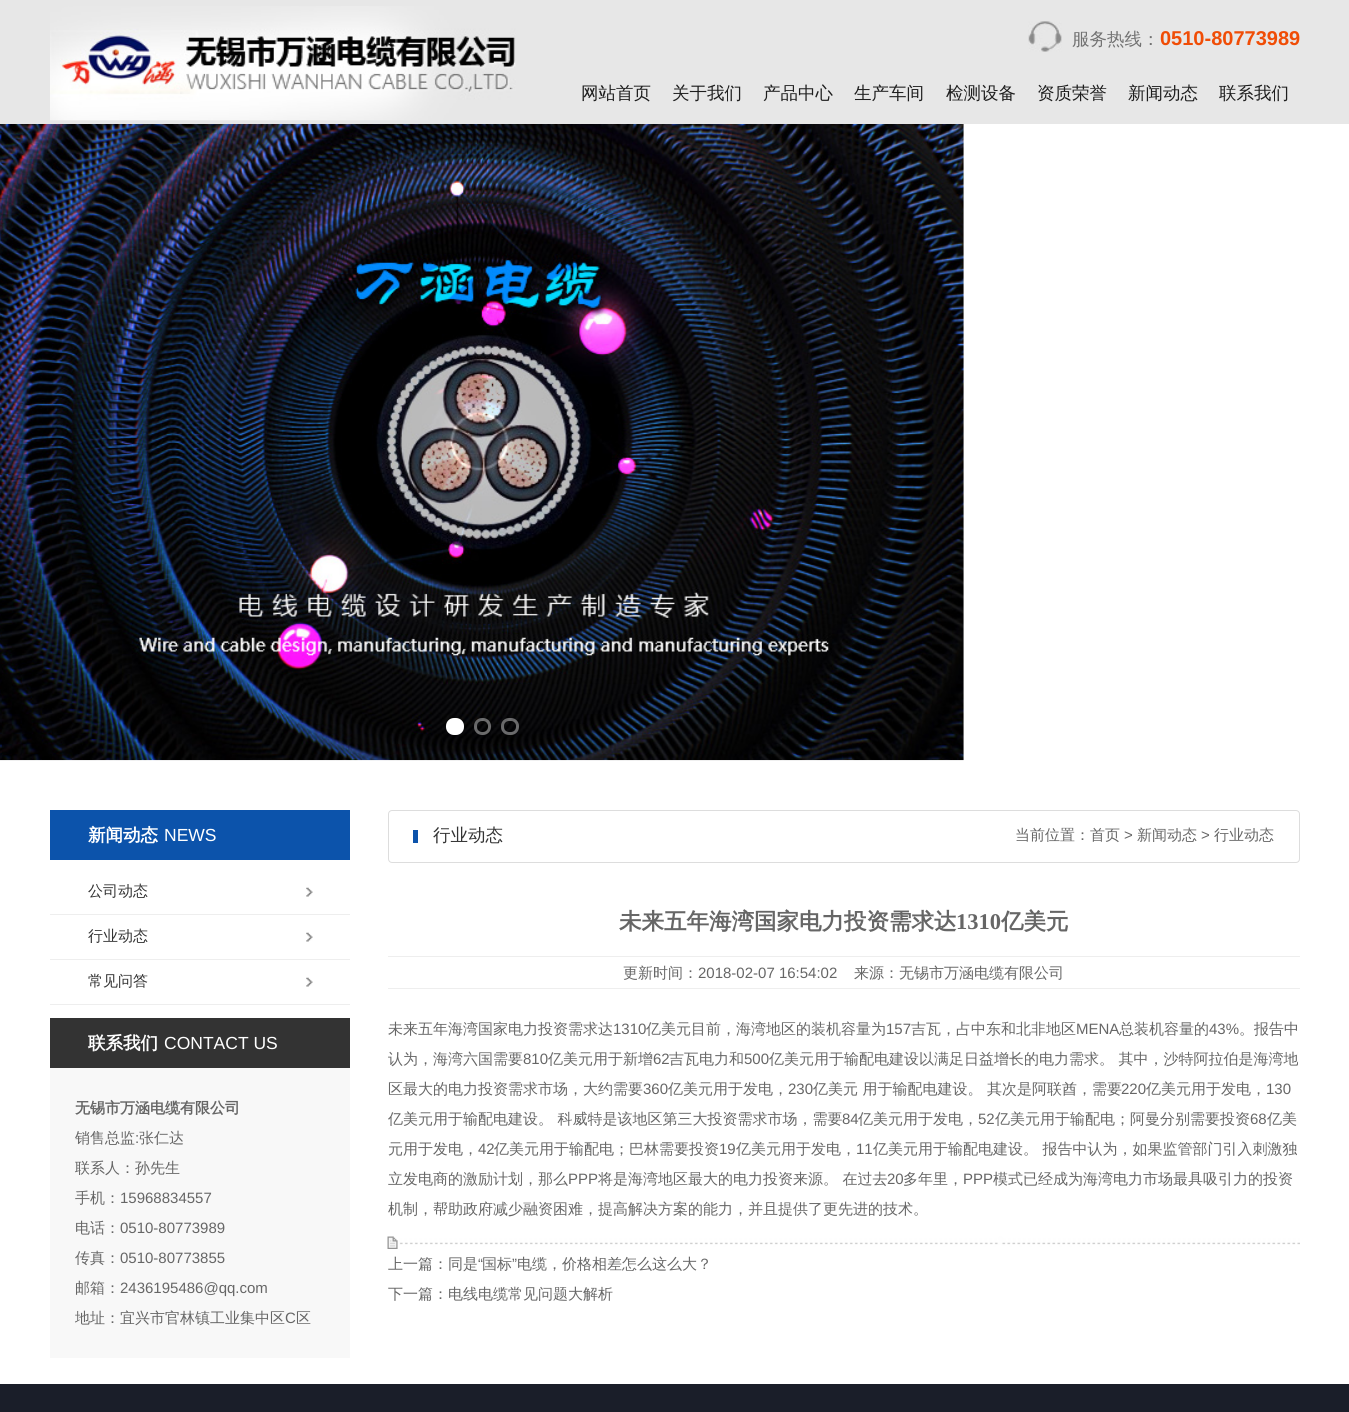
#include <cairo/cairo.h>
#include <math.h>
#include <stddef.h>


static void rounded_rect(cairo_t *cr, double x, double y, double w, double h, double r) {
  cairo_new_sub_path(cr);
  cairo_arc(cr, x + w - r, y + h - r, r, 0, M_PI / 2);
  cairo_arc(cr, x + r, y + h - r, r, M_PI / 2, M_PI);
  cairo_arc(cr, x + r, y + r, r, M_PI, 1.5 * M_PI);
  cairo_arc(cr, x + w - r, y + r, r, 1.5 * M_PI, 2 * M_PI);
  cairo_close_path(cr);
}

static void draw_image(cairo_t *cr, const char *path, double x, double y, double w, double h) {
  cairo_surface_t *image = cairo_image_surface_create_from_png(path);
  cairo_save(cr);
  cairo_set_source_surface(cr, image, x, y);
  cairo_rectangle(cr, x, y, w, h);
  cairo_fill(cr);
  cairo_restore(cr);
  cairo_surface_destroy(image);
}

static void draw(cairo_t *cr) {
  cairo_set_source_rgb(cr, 1, 1, 1);
  cairo_paint(cr);
  cairo_set_source_rgb(cr, 231 / 255.0, 231 / 255.0, 231 / 255.0);
  cairo_rectangle(cr, 0, 0, 1349, 124);
  cairo_fill(cr);
  draw_image(cr, "images/1.png", 50, 6, 466, 115);
  draw_image(cr, "images/2.png", 1028, 21, 34, 31);
  draw_image(cr, "images/3.png", 0, 124, 964, 637);
  cairo_set_source_rgb(cr, 1, 1, 1);
  rounded_rect(cr, 447.5, 719.5, 15, 14, 6.5);
  cairo_fill_preserve(cr);
  cairo_set_line_width(cr, 3);
  cairo_stroke(cr);
  rounded_rect(cr, 475.5, 719.5, 14, 14, 6.5);
  cairo_set_source_rgba(cr, 1, 1, 1, 0.4);
  cairo_stroke(cr);
  rounded_rect(cr, 502.5, 719.5, 15, 14, 6.5);
  cairo_stroke(cr);
  cairo_set_source_rgb(cr, 12 / 255.0, 83 / 255.0, 171 / 255.0);
  cairo_rectangle(cr, 50, 810, 300, 50);
  cairo_fill(cr);
  cairo_set_source_rgb(cr, 238 / 255.0, 238 / 255.0, 238 / 255.0);
  cairo_rectangle(cr, 50, 914, 300, 1);
  cairo_fill(cr);
  draw_image(cr, "images/4.png", 306, 887, 7, 10);
  cairo_rectangle(cr, 50, 959, 300, 1);
  cairo_fill(cr);
  draw_image(cr, "images/4.png", 306, 932, 7, 10);
  cairo_rectangle(cr, 50, 1004, 300, 1);
  cairo_fill(cr);
  draw_image(cr, "images/4.png", 306, 977, 7, 10);
  cairo_set_source_rgb(cr, 51 / 255.0, 51 / 255.0, 51 / 255.0);
  cairo_rectangle(cr, 50, 1018, 300, 50);
  cairo_fill(cr);
  cairo_set_source_rgb(cr, 248 / 255.0, 248 / 255.0, 248 / 255.0);
  cairo_rectangle(cr, 50, 1068, 300, 290);
  cairo_fill(cr);
  cairo_set_source_rgb(cr, 12 / 255.0, 83 / 255.0, 171 / 255.0);
  cairo_rectangle(cr, 413, 830, 5, 13);
  cairo_fill(cr);
  rounded_rect(cr, 388.5, 810.5, 911, 52, 3.5);
  cairo_set_source_rgb(cr, 221 / 255.0, 221 / 255.0, 221 / 255.0);
  cairo_set_line_width(cr, 1);
  cairo_stroke(cr);
  cairo_set_source_rgb(cr, 238 / 255.0, 238 / 255.0, 238 / 255.0);
  cairo_rectangle(cr, 388, 956, 912, 1);
  cairo_fill(cr);
  cairo_rectangle(cr, 388, 988, 912, 1);
  cairo_fill(cr);
  draw_image(cr, "images/5.png", 387, 1236, 913, 13);
  cairo_set_source_rgb(cr, 26 / 255.0, 30 / 255.0, 41 / 255.0);
  cairo_rectangle(cr, 0, 1384, 1349, 28);
  cairo_fill(cr);
  cairo_select_font_face(cr, "WenQuanYi Zen Hei Medium", CAIRO_FONT_SLANT_NORMAL, CAIRO_FONT_WEIGHT_NORMAL);
  cairo_set_font_size(cr, 17.5);
  cairo_set_source_rgb(cr, 114 / 255.0, 114 / 255.0, 114 / 255.0);
  cairo_move_to(cr, 1072, 45);
  cairo_show_text(cr, "服务热线：");
  cairo_select_font_face(cr, "Liberation Sans", CAIRO_FONT_SLANT_NORMAL, CAIRO_FONT_WEIGHT_BOLD);
  cairo_set_font_size(cr, 20);
  cairo_set_source_rgb(cr, 240 / 255.0, 77 / 255.0, 6 / 255.0);
  cairo_move_to(cr, 1160, 45);
  cairo_show_text(cr, "0510-80773989");
  cairo_select_font_face(cr, "WenQuanYi Zen Hei Medium", CAIRO_FONT_SLANT_NORMAL, CAIRO_FONT_WEIGHT_NORMAL);
  cairo_set_font_size(cr, 17.5);
  cairo_set_source_rgb(cr, 30 / 255.0, 30 / 255.0, 30 / 255.0);
  cairo_move_to(cr, 581, 99);
  cairo_show_text(cr, "网站首页");
  cairo_move_to(cr, 672, 99);
  cairo_show_text(cr, "关于我们");
  cairo_move_to(cr, 763, 99);
  cairo_show_text(cr, "产品中心");
  cairo_move_to(cr, 854, 99);
  cairo_show_text(cr, "生产车间");
  cairo_move_to(cr, 946, 99);
  cairo_show_text(cr, "检测设备");
  cairo_move_to(cr, 1037, 99);
  cairo_show_text(cr, "资质荣誉");
  cairo_move_to(cr, 1128, 99);
  cairo_show_text(cr, "新闻动态");
  cairo_move_to(cr, 1219, 99);
  cairo_show_text(cr, "联系我们");
  cairo_select_font_face(cr, "WenQuanYi Zen Hei", CAIRO_FONT_SLANT_NORMAL, CAIRO_FONT_WEIGHT_BOLD);
  cairo_set_source_rgb(cr, 1, 1, 1);
  cairo_move_to(cr, 88, 841);
  cairo_show_text(cr, "新闻动态");
  cairo_select_font_face(cr, "Liberation Sans", CAIRO_FONT_SLANT_NORMAL, CAIRO_FONT_WEIGHT_NORMAL);
  cairo_move_to(cr, 164, 841);
  cairo_show_text(cr, "NEWS");
  cairo_select_font_face(cr, "WenQuanYi Zen Hei Medium", CAIRO_FONT_SLANT_NORMAL, CAIRO_FONT_WEIGHT_NORMAL);
  cairo_set_font_size(cr, 15);
  cairo_set_source_rgb(cr, 51 / 255.0, 51 / 255.0, 51 / 255.0);
  cairo_move_to(cr, 88, 896);
  cairo_show_text(cr, "公司动态");
  cairo_move_to(cr, 88, 941);
  cairo_show_text(cr, "行业动态");
  cairo_move_to(cr, 88, 986);
  cairo_show_text(cr, "常见问答");
  cairo_select_font_face(cr, "WenQuanYi Zen Hei", CAIRO_FONT_SLANT_NORMAL, CAIRO_FONT_WEIGHT_BOLD);
  cairo_set_font_size(cr, 17.5);
  cairo_set_source_rgb(cr, 1, 1, 1);
  cairo_move_to(cr, 88, 1049);
  cairo_show_text(cr, "联系我们");
  cairo_select_font_face(cr, "Liberation Sans", CAIRO_FONT_SLANT_NORMAL, CAIRO_FONT_WEIGHT_NORMAL);
  cairo_move_to(cr, 164, 1049);
  cairo_show_text(cr, "CONTACT US");
  cairo_select_font_face(cr, "WenQuanYi Zen Hei", CAIRO_FONT_SLANT_NORMAL, CAIRO_FONT_WEIGHT_BOLD);
  cairo_set_font_size(cr, 15);
  cairo_set_source_rgb(cr, 102 / 255.0, 102 / 255.0, 102 / 255.0);
  cairo_move_to(cr, 75, 1113);
  cairo_show_text(cr, "无锡市万涵电缆有限公司");
  cairo_select_font_face(cr, "WenQuanYi Zen Hei Medium", CAIRO_FONT_SLANT_NORMAL, CAIRO_FONT_WEIGHT_NORMAL);
  cairo_move_to(cr, 75, 1143);
  cairo_show_text(cr, "销售总监");
  cairo_select_font_face(cr, "Liberation Sans", CAIRO_FONT_SLANT_NORMAL, CAIRO_FONT_WEIGHT_NORMAL);
  cairo_move_to(cr, 135, 1143);
  cairo_show_text(cr, ":");
  cairo_select_font_face(cr, "WenQuanYi Zen Hei Medium", CAIRO_FONT_SLANT_NORMAL, CAIRO_FONT_WEIGHT_NORMAL);
  cairo_move_to(cr, 139, 1143);
  cairo_show_text(cr, "张仁达");
  cairo_move_to(cr, 75, 1173);
  cairo_show_text(cr, "联系人：孙先生");
  cairo_move_to(cr, 75, 1203);
  cairo_show_text(cr, "手机：");
  cairo_select_font_face(cr, "Liberation Sans", CAIRO_FONT_SLANT_NORMAL, CAIRO_FONT_WEIGHT_NORMAL);
  cairo_move_to(cr, 120, 1203);
  cairo_show_text(cr, "15968834557");
  cairo_select_font_face(cr, "WenQuanYi Zen Hei Medium", CAIRO_FONT_SLANT_NORMAL, CAIRO_FONT_WEIGHT_NORMAL);
  cairo_move_to(cr, 75, 1233);
  cairo_show_text(cr, "电话：");
  cairo_select_font_face(cr, "Liberation Sans", CAIRO_FONT_SLANT_NORMAL, CAIRO_FONT_WEIGHT_NORMAL);
  cairo_move_to(cr, 120, 1233);
  cairo_show_text(cr, "0510-80773989");
  cairo_select_font_face(cr, "WenQuanYi Zen Hei Medium", CAIRO_FONT_SLANT_NORMAL, CAIRO_FONT_WEIGHT_NORMAL);
  cairo_move_to(cr, 75, 1263);
  cairo_show_text(cr, "传真：");
  cairo_select_font_face(cr, "Liberation Sans", CAIRO_FONT_SLANT_NORMAL, CAIRO_FONT_WEIGHT_NORMAL);
  cairo_move_to(cr, 120, 1263);
  cairo_show_text(cr, "0510-80773855");
  cairo_select_font_face(cr, "WenQuanYi Zen Hei Medium", CAIRO_FONT_SLANT_NORMAL, CAIRO_FONT_WEIGHT_NORMAL);
  cairo_move_to(cr, 75, 1293);
  cairo_show_text(cr, "邮箱：");
  cairo_select_font_face(cr, "Liberation Sans", CAIRO_FONT_SLANT_NORMAL, CAIRO_FONT_WEIGHT_NORMAL);
  cairo_move_to(cr, 120, 1293);
  cairo_show_text(cr, "2436195486@qq.com");
  cairo_select_font_face(cr, "WenQuanYi Zen Hei Medium", CAIRO_FONT_SLANT_NORMAL, CAIRO_FONT_WEIGHT_NORMAL);
  cairo_move_to(cr, 75, 1323);
  cairo_show_text(cr, "地址：宜兴市官林镇工业集中区");
  cairo_select_font_face(cr, "Liberation Sans", CAIRO_FONT_SLANT_NORMAL, CAIRO_FONT_WEIGHT_NORMAL);
  cairo_move_to(cr, 285, 1323);
  cairo_show_text(cr, "C");
  cairo_select_font_face(cr, "WenQuanYi Zen Hei Medium", CAIRO_FONT_SLANT_NORMAL, CAIRO_FONT_WEIGHT_NORMAL);
  cairo_move_to(cr, 296, 1323);
  cairo_show_text(cr, "区");
  cairo_set_font_size(cr, 17.5);
  cairo_set_source_rgb(cr, 51 / 255.0, 51 / 255.0, 51 / 255.0);
  cairo_move_to(cr, 433, 841);
  cairo_show_text(cr, "行业动态");
  cairo_set_font_size(cr, 15);
  cairo_set_source_rgb(cr, 102 / 255.0, 102 / 255.0, 102 / 255.0);
  cairo_move_to(cr, 1015, 840);
  cairo_show_text(cr, "当前位置：首页");
  cairo_select_font_face(cr, "Liberation Sans", CAIRO_FONT_SLANT_NORMAL, CAIRO_FONT_WEIGHT_NORMAL);
  cairo_move_to(cr, 1124, 840);
  cairo_show_text(cr, ">");
  cairo_select_font_face(cr, "WenQuanYi Zen Hei Medium", CAIRO_FONT_SLANT_NORMAL, CAIRO_FONT_WEIGHT_NORMAL);
  cairo_move_to(cr, 1137, 840);
  cairo_show_text(cr, "新闻动态");
  cairo_select_font_face(cr, "Liberation Sans", CAIRO_FONT_SLANT_NORMAL, CAIRO_FONT_WEIGHT_NORMAL);
  cairo_move_to(cr, 1201, 840);
  cairo_show_text(cr, ">");
  cairo_select_font_face(cr, "WenQuanYi Zen Hei Medium", CAIRO_FONT_SLANT_NORMAL, CAIRO_FONT_WEIGHT_NORMAL);
  cairo_move_to(cr, 1214, 840);
  cairo_show_text(cr, "行业动态");
  cairo_select_font_face(cr, "WenQuanYi Zen Hei", CAIRO_FONT_SLANT_NORMAL, CAIRO_FONT_WEIGHT_BOLD);
  cairo_set_font_size(cr, 22.5);
  cairo_move_to(cr, 619, 929);
  cairo_show_text(cr, "未来五年海湾国家电力投资需求达");
  cairo_select_font_face(cr, "Liberation Serif", CAIRO_FONT_SLANT_NORMAL, CAIRO_FONT_WEIGHT_BOLD);
  cairo_move_to(cr, 956, 929);
  cairo_show_text(cr, "1310");
  cairo_select_font_face(cr, "WenQuanYi Zen Hei", CAIRO_FONT_SLANT_NORMAL, CAIRO_FONT_WEIGHT_BOLD);
  cairo_move_to(cr, 1001, 929);
  cairo_show_text(cr, "亿美元");
  cairo_select_font_face(cr, "WenQuanYi Zen Hei Medium", CAIRO_FONT_SLANT_NORMAL, CAIRO_FONT_WEIGHT_NORMAL);
  cairo_set_font_size(cr, 15);
  cairo_move_to(cr, 623, 978);
  cairo_show_text(cr, "更新时间：");
  cairo_select_font_face(cr, "Liberation Sans", CAIRO_FONT_SLANT_NORMAL, CAIRO_FONT_WEIGHT_NORMAL);
  cairo_move_to(cr, 698, 978);
  cairo_show_text(cr, "2018-02-07 16:54:02");
  cairo_select_font_face(cr, "WenQuanYi Zen Hei Medium", CAIRO_FONT_SLANT_NORMAL, CAIRO_FONT_WEIGHT_NORMAL);
  cairo_move_to(cr, 854, 978);
  cairo_show_text(cr, "来源：无锡市万涵电缆有限公司");
  cairo_move_to(cr, 388, 1034);
  cairo_show_text(cr, "未来五年海湾国家电力投资需求达");
  cairo_select_font_face(cr, "Liberation Sans", CAIRO_FONT_SLANT_NORMAL, CAIRO_FONT_WEIGHT_NORMAL);
  cairo_move_to(cr, 613, 1034);
  cairo_show_text(cr, "1310");
  cairo_select_font_face(cr, "WenQuanYi Zen Hei Medium", CAIRO_FONT_SLANT_NORMAL, CAIRO_FONT_WEIGHT_NORMAL);
  cairo_move_to(cr, 646, 1034);
  cairo_show_text(cr, "亿美元目前，海湾地区的装机容量为");
  cairo_select_font_face(cr, "Liberation Sans", CAIRO_FONT_SLANT_NORMAL, CAIRO_FONT_WEIGHT_NORMAL);
  cairo_move_to(cr, 886, 1034);
  cairo_show_text(cr, "157");
  cairo_select_font_face(cr, "WenQuanYi Zen Hei Medium", CAIRO_FONT_SLANT_NORMAL, CAIRO_FONT_WEIGHT_NORMAL);
  cairo_move_to(cr, 911, 1034);
  cairo_show_text(cr, "吉瓦，占中东和北非地区");
  cairo_select_font_face(cr, "Liberation Sans", CAIRO_FONT_SLANT_NORMAL, CAIRO_FONT_WEIGHT_NORMAL);
  cairo_move_to(cr, 1076, 1034);
  cairo_show_text(cr, "MENA");
  cairo_select_font_face(cr, "WenQuanYi Zen Hei Medium", CAIRO_FONT_SLANT_NORMAL, CAIRO_FONT_WEIGHT_NORMAL);
  cairo_move_to(cr, 1119, 1034);
  cairo_show_text(cr, "总装机容量的");
  cairo_select_font_face(cr, "Liberation Sans", CAIRO_FONT_SLANT_NORMAL, CAIRO_FONT_WEIGHT_NORMAL);
  cairo_move_to(cr, 1209, 1034);
  cairo_show_text(cr, "43%");
  cairo_select_font_face(cr, "WenQuanYi Zen Hei Medium", CAIRO_FONT_SLANT_NORMAL, CAIRO_FONT_WEIGHT_NORMAL);
  cairo_move_to(cr, 1239, 1034);
  cairo_show_text(cr, "。报告中");
  cairo_move_to(cr, 388, 1064);
  cairo_show_text(cr, "认为，海湾六国需要");
  cairo_select_font_face(cr, "Liberation Sans", CAIRO_FONT_SLANT_NORMAL, CAIRO_FONT_WEIGHT_NORMAL);
  cairo_move_to(cr, 523, 1064);
  cairo_show_text(cr, "810");
  cairo_select_font_face(cr, "WenQuanYi Zen Hei Medium", CAIRO_FONT_SLANT_NORMAL, CAIRO_FONT_WEIGHT_NORMAL);
  cairo_move_to(cr, 548, 1064);
  cairo_show_text(cr, "亿美元用于新增");
  cairo_select_font_face(cr, "Liberation Sans", CAIRO_FONT_SLANT_NORMAL, CAIRO_FONT_WEIGHT_NORMAL);
  cairo_move_to(cr, 653, 1064);
  cairo_show_text(cr, "62");
  cairo_select_font_face(cr, "WenQuanYi Zen Hei Medium", CAIRO_FONT_SLANT_NORMAL, CAIRO_FONT_WEIGHT_NORMAL);
  cairo_move_to(cr, 669, 1064);
  cairo_show_text(cr, "吉瓦电力和");
  cairo_select_font_face(cr, "Liberation Sans", CAIRO_FONT_SLANT_NORMAL, CAIRO_FONT_WEIGHT_NORMAL);
  cairo_move_to(cr, 744, 1064);
  cairo_show_text(cr, "500");
  cairo_select_font_face(cr, "WenQuanYi Zen Hei Medium", CAIRO_FONT_SLANT_NORMAL, CAIRO_FONT_WEIGHT_NORMAL);
  cairo_move_to(cr, 769, 1064);
  cairo_show_text(cr, "亿美元用于输配电建设以满足日益增长的电力需求。 其中，沙特阿拉伯是海湾地");
  cairo_move_to(cr, 388, 1094);
  cairo_show_text(cr, "区最大的电力投资需求市场，大约需要");
  cairo_select_font_face(cr, "Liberation Sans", CAIRO_FONT_SLANT_NORMAL, CAIRO_FONT_WEIGHT_NORMAL);
  cairo_move_to(cr, 643, 1094);
  cairo_show_text(cr, "360");
  cairo_select_font_face(cr, "WenQuanYi Zen Hei Medium", CAIRO_FONT_SLANT_NORMAL, CAIRO_FONT_WEIGHT_NORMAL);
  cairo_move_to(cr, 668, 1094);
  cairo_show_text(cr, "亿美元用于发电，");
  cairo_select_font_face(cr, "Liberation Sans", CAIRO_FONT_SLANT_NORMAL, CAIRO_FONT_WEIGHT_NORMAL);
  cairo_move_to(cr, 788, 1094);
  cairo_show_text(cr, "230");
  cairo_select_font_face(cr, "WenQuanYi Zen Hei Medium", CAIRO_FONT_SLANT_NORMAL, CAIRO_FONT_WEIGHT_NORMAL);
  cairo_move_to(cr, 813, 1094);
  cairo_show_text(cr, "亿美元 用于输配电建设。 其次是阿联酋，需要");
  cairo_select_font_face(cr, "Liberation Sans", CAIRO_FONT_SLANT_NORMAL, CAIRO_FONT_WEIGHT_NORMAL);
  cairo_move_to(cr, 1121, 1094);
  cairo_show_text(cr, "220");
  cairo_select_font_face(cr, "WenQuanYi Zen Hei Medium", CAIRO_FONT_SLANT_NORMAL, CAIRO_FONT_WEIGHT_NORMAL);
  cairo_move_to(cr, 1146, 1094);
  cairo_show_text(cr, "亿美元用于发电，");
  cairo_select_font_face(cr, "Liberation Sans", CAIRO_FONT_SLANT_NORMAL, CAIRO_FONT_WEIGHT_NORMAL);
  cairo_move_to(cr, 1266, 1094);
  cairo_show_text(cr, "130");
  cairo_select_font_face(cr, "WenQuanYi Zen Hei Medium", CAIRO_FONT_SLANT_NORMAL, CAIRO_FONT_WEIGHT_NORMAL);
  cairo_move_to(cr, 388, 1124);
  cairo_show_text(cr, "亿美元用于输配电建设。 科威特是该地区第三大投资需求市场，需要");
  cairo_select_font_face(cr, "Liberation Sans", CAIRO_FONT_SLANT_NORMAL, CAIRO_FONT_WEIGHT_NORMAL);
  cairo_move_to(cr, 842, 1124);
  cairo_show_text(cr, "84");
  cairo_select_font_face(cr, "WenQuanYi Zen Hei Medium", CAIRO_FONT_SLANT_NORMAL, CAIRO_FONT_WEIGHT_NORMAL);
  cairo_move_to(cr, 858, 1124);
  cairo_show_text(cr, "亿美元用于发电，");
  cairo_select_font_face(cr, "Liberation Sans", CAIRO_FONT_SLANT_NORMAL, CAIRO_FONT_WEIGHT_NORMAL);
  cairo_move_to(cr, 978, 1124);
  cairo_show_text(cr, "52");
  cairo_select_font_face(cr, "WenQuanYi Zen Hei Medium", CAIRO_FONT_SLANT_NORMAL, CAIRO_FONT_WEIGHT_NORMAL);
  cairo_move_to(cr, 995, 1124);
  cairo_show_text(cr, "亿美元用于输配电；阿曼分别需要投资");
  cairo_select_font_face(cr, "Liberation Sans", CAIRO_FONT_SLANT_NORMAL, CAIRO_FONT_WEIGHT_NORMAL);
  cairo_move_to(cr, 1250, 1124);
  cairo_show_text(cr, "68");
  cairo_select_font_face(cr, "WenQuanYi Zen Hei Medium", CAIRO_FONT_SLANT_NORMAL, CAIRO_FONT_WEIGHT_NORMAL);
  cairo_move_to(cr, 1267, 1124);
  cairo_show_text(cr, "亿美");
  cairo_move_to(cr, 388, 1154);
  cairo_show_text(cr, "元用于发电，");
  cairo_select_font_face(cr, "Liberation Sans", CAIRO_FONT_SLANT_NORMAL, CAIRO_FONT_WEIGHT_NORMAL);
  cairo_move_to(cr, 478, 1154);
  cairo_show_text(cr, "42");
  cairo_select_font_face(cr, "WenQuanYi Zen Hei Medium", CAIRO_FONT_SLANT_NORMAL, CAIRO_FONT_WEIGHT_NORMAL);
  cairo_move_to(cr, 494, 1154);
  cairo_show_text(cr, "亿美元用于输配电；巴林需要投资");
  cairo_select_font_face(cr, "Liberation Sans", CAIRO_FONT_SLANT_NORMAL, CAIRO_FONT_WEIGHT_NORMAL);
  cairo_move_to(cr, 719, 1154);
  cairo_show_text(cr, "19");
  cairo_select_font_face(cr, "WenQuanYi Zen Hei Medium", CAIRO_FONT_SLANT_NORMAL, CAIRO_FONT_WEIGHT_NORMAL);
  cairo_move_to(cr, 736, 1154);
  cairo_show_text(cr, "亿美元用于发电，");
  cairo_select_font_face(cr, "Liberation Sans", CAIRO_FONT_SLANT_NORMAL, CAIRO_FONT_WEIGHT_NORMAL);
  cairo_move_to(cr, 856, 1154);
  cairo_show_text(cr, "11");
  cairo_select_font_face(cr, "WenQuanYi Zen Hei Medium", CAIRO_FONT_SLANT_NORMAL, CAIRO_FONT_WEIGHT_NORMAL);
  cairo_move_to(cr, 873, 1154);
  cairo_show_text(cr, "亿美元用于输配电建设。 报告中认为，如果监管部门引入刺激独");
  cairo_move_to(cr, 388, 1184);
  cairo_show_text(cr, "立发电商的激励计划，那么");
  cairo_select_font_face(cr, "Liberation Sans", CAIRO_FONT_SLANT_NORMAL, CAIRO_FONT_WEIGHT_NORMAL);
  cairo_move_to(cr, 568, 1184);
  cairo_show_text(cr, "PPP");
  cairo_select_font_face(cr, "WenQuanYi Zen Hei Medium", CAIRO_FONT_SLANT_NORMAL, CAIRO_FONT_WEIGHT_NORMAL);
  cairo_move_to(cr, 598, 1184);
  cairo_show_text(cr, "将是海湾地区最大的电力投资来源。 在过去");
  cairo_select_font_face(cr, "Liberation Sans", CAIRO_FONT_SLANT_NORMAL, CAIRO_FONT_WEIGHT_NORMAL);
  cairo_move_to(cr, 887, 1184);
  cairo_show_text(cr, "20");
  cairo_select_font_face(cr, "WenQuanYi Zen Hei Medium", CAIRO_FONT_SLANT_NORMAL, CAIRO_FONT_WEIGHT_NORMAL);
  cairo_move_to(cr, 903, 1184);
  cairo_show_text(cr, "多年里，");
  cairo_select_font_face(cr, "Liberation Sans", CAIRO_FONT_SLANT_NORMAL, CAIRO_FONT_WEIGHT_NORMAL);
  cairo_move_to(cr, 963, 1184);
  cairo_show_text(cr, "PPP");
  cairo_select_font_face(cr, "WenQuanYi Zen Hei Medium", CAIRO_FONT_SLANT_NORMAL, CAIRO_FONT_WEIGHT_NORMAL);
  cairo_move_to(cr, 993, 1184);
  cairo_show_text(cr, "模式已经成为海湾电力市场最具吸引力的投资");
  cairo_move_to(cr, 388, 1214);
  cairo_show_text(cr, "机制，帮助政府减少融资困难，提高解决方案的能力，并且提供了更先进的技术。");
  cairo_move_to(cr, 388, 1269);
  cairo_show_text(cr, "上一篇：同是");
  cairo_select_font_face(cr, "Liberation Sans", CAIRO_FONT_SLANT_NORMAL, CAIRO_FONT_WEIGHT_NORMAL);
  cairo_move_to(cr, 478, 1269);
  cairo_show_text(cr, "“");
  cairo_select_font_face(cr, "WenQuanYi Zen Hei Medium", CAIRO_FONT_SLANT_NORMAL, CAIRO_FONT_WEIGHT_NORMAL);
  cairo_move_to(cr, 482, 1269);
  cairo_show_text(cr, "国标");
  cairo_select_font_face(cr, "Liberation Sans", CAIRO_FONT_SLANT_NORMAL, CAIRO_FONT_WEIGHT_NORMAL);
  cairo_move_to(cr, 512, 1269);
  cairo_show_text(cr, "”");
  cairo_select_font_face(cr, "WenQuanYi Zen Hei Medium", CAIRO_FONT_SLANT_NORMAL, CAIRO_FONT_WEIGHT_NORMAL);
  cairo_move_to(cr, 517, 1269);
  cairo_show_text(cr, "电缆，价格相差怎么这么大？");
  cairo_move_to(cr, 388, 1299);
  cairo_show_text(cr, "下一篇：电线电缆常见问题大解析");
}

int main(void) {
  cairo_surface_t *surface = cairo_image_surface_create(CAIRO_FORMAT_RGB24, 1349, 1412);
  cairo_t *cr = cairo_create(surface);
  cairo_font_options_t *options = cairo_font_options_create();
  cairo_font_options_set_hint_metrics(options, CAIRO_HINT_METRICS_OFF);
  cairo_font_options_set_hint_style(options, CAIRO_HINT_STYLE_NONE);
  cairo_set_font_options(cr, options);
  cairo_set_miter_limit(cr, 4);
  draw(cr);
  cairo_surface_write_to_png(surface, "out.png");
  cairo_font_options_destroy(options);
  cairo_destroy(cr);
  cairo_surface_destroy(surface);
  return 0;
}
